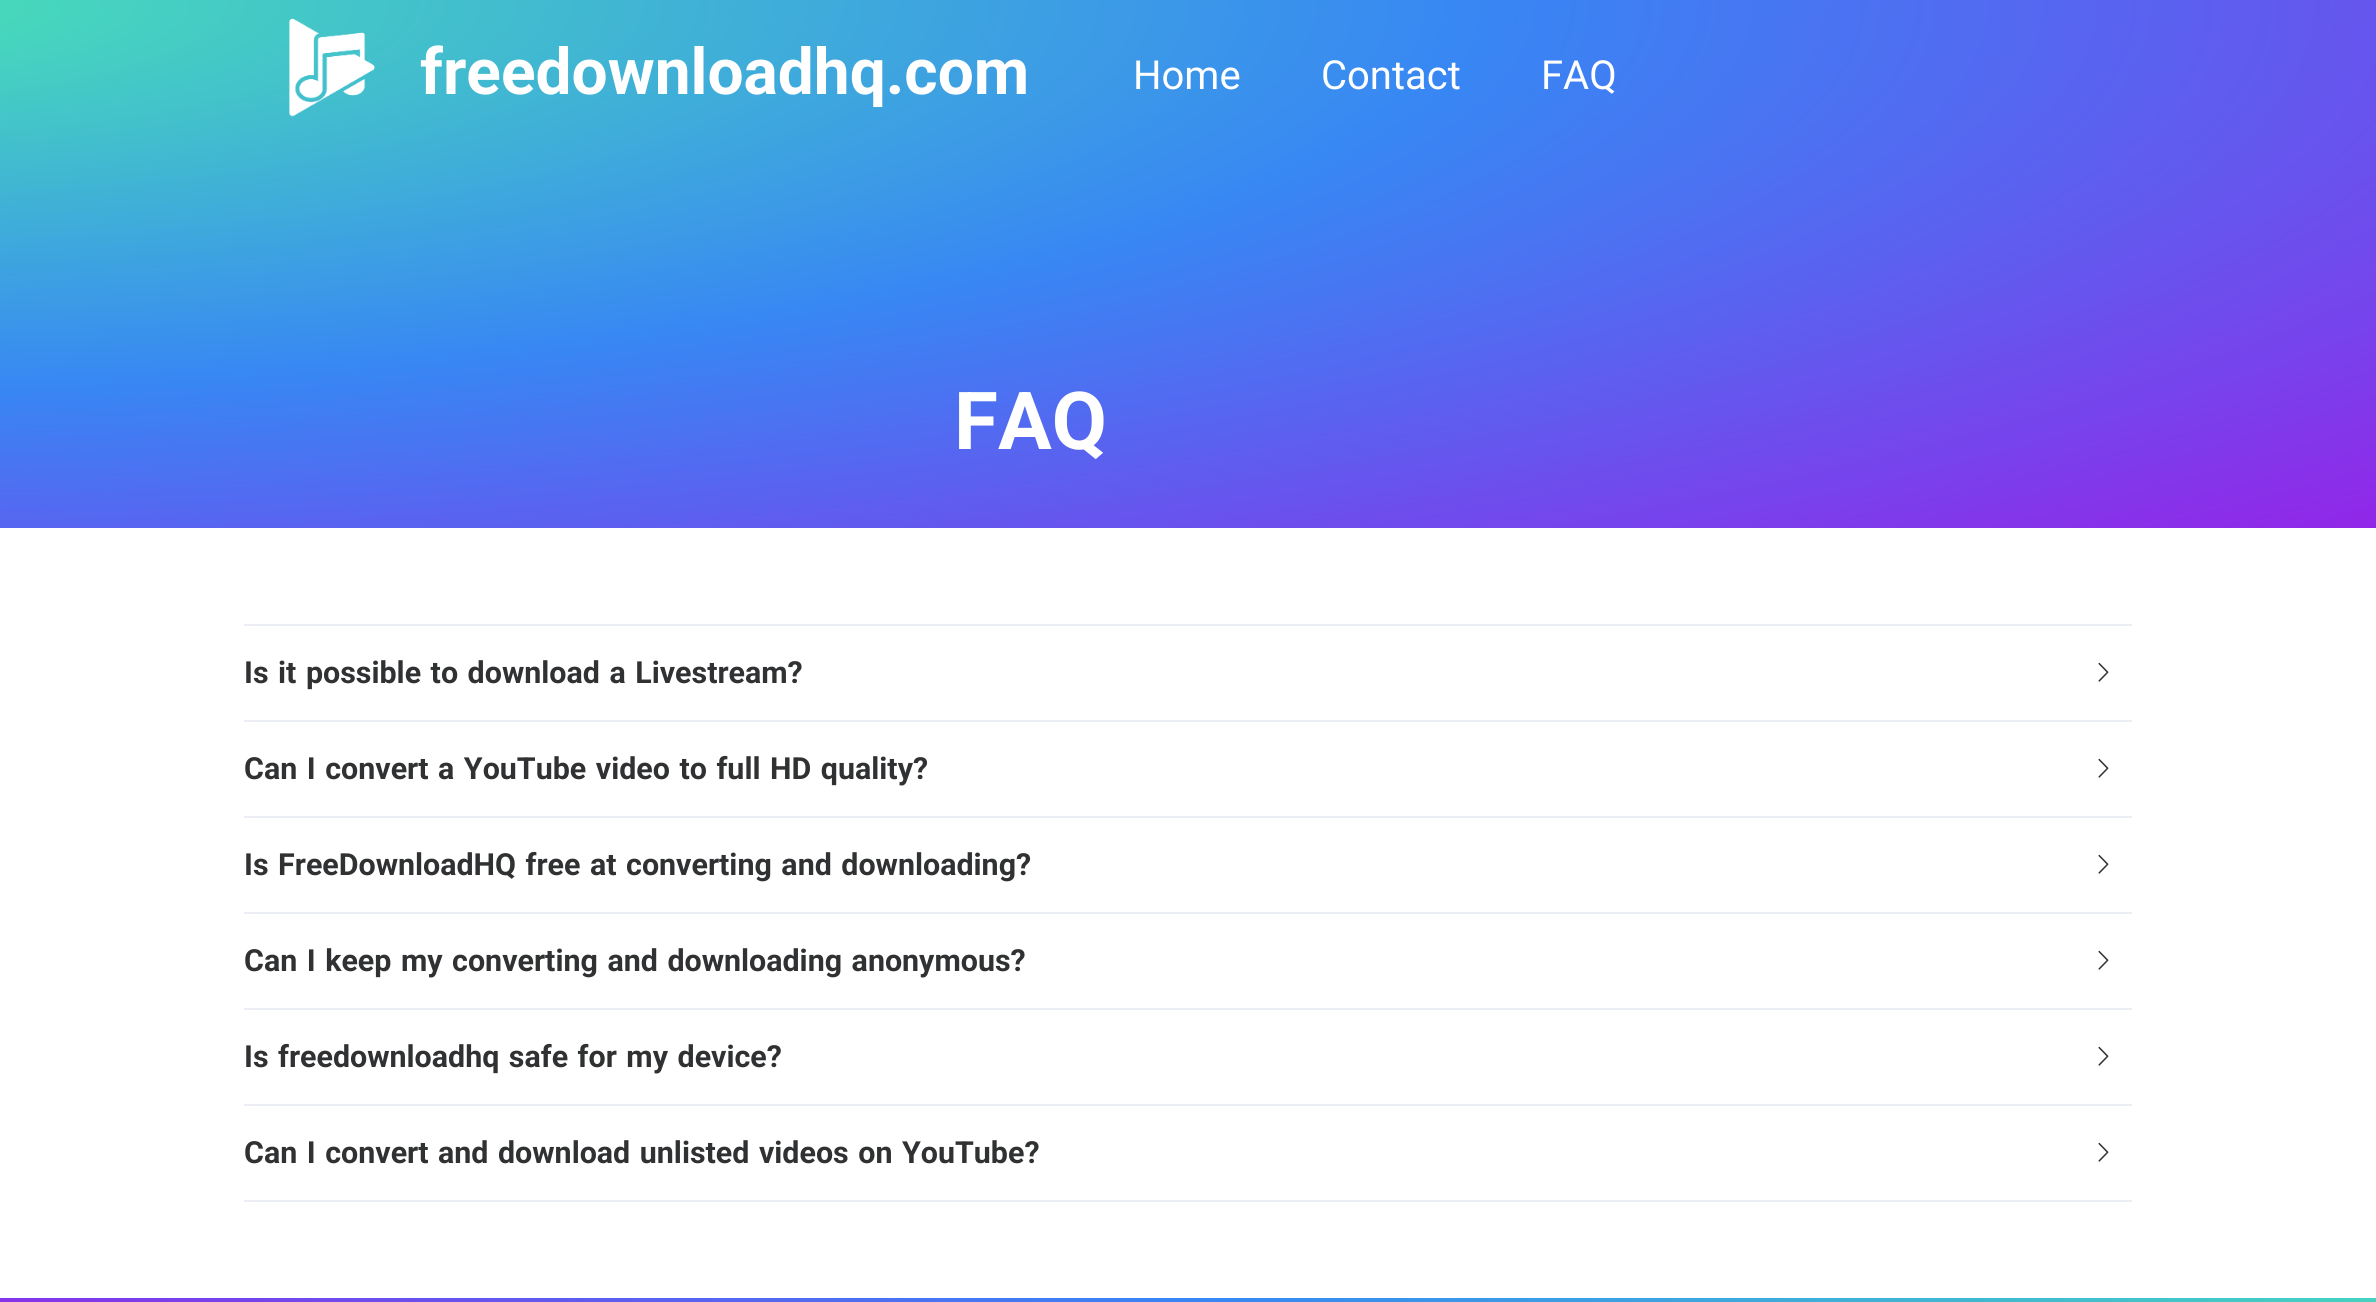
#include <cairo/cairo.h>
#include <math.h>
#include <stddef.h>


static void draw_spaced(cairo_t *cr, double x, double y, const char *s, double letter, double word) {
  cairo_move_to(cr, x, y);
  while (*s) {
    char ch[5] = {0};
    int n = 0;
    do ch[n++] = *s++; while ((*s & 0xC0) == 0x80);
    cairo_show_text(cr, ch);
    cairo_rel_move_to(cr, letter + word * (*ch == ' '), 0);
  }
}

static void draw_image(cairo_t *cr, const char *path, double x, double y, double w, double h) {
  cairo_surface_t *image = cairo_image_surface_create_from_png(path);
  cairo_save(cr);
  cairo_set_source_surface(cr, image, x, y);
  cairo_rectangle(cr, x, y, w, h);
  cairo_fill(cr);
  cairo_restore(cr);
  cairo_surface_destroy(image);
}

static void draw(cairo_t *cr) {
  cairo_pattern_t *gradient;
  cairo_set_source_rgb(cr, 1, 1, 1);
  cairo_paint(cr);
  gradient = cairo_pattern_create_radial(0, 0, 0, 0, 0, 1);
  cairo_pattern_set_matrix(gradient, &(cairo_matrix_t){1.0 / 3447, 0, 0, 1.0 / 799, -1.0 * -200 / 3447, -1.0 * 2.3 / 799});
  cairo_pattern_add_color_stop_rgba(gradient, 0, 73 / 255.0, 227 / 255.0, 180 / 255.0, 1);
  cairo_pattern_add_color_stop_rgba(gradient, 0.49, 56 / 255.0, 134 / 255.0, 244 / 255.0, 1);
  cairo_pattern_add_color_stop_rgba(gradient, 1, 147 / 255.0, 37 / 255.0, 232 / 255.0, 1);
  cairo_set_source(cr, gradient);
  cairo_pattern_destroy(gradient);
  cairo_rectangle(cr, 0, 0, 2376, 528);
  cairo_fill(cr);
  draw_image(cr, "images/1.png", 289, 18, 86, 99);
  cairo_set_source_rgb(cr, 235 / 255.0, 238 / 255.0, 245 / 255.0);
  cairo_rectangle(cr, 244, 624, 1888, 2);
  cairo_fill(cr);
  cairo_rectangle(cr, 244, 720, 1888, 2);
  cairo_fill(cr);
  draw_image(cr, "images/2.png", 2098, 662, 11, 20);
  cairo_rectangle(cr, 244, 816, 1888, 2);
  cairo_fill(cr);
  draw_image(cr, "images/2.png", 2098, 758, 11, 20);
  cairo_rectangle(cr, 244, 912, 1888, 2);
  cairo_fill(cr);
  draw_image(cr, "images/2.png", 2098, 854, 11, 20);
  cairo_rectangle(cr, 244, 1008, 1888, 2);
  cairo_fill(cr);
  draw_image(cr, "images/2.png", 2098, 950, 11, 20);
  cairo_rectangle(cr, 244, 1104, 1888, 2);
  cairo_fill(cr);
  draw_image(cr, "images/2.png", 2098, 1046, 11, 20);
  cairo_rectangle(cr, 244, 1200, 1888, 2);
  cairo_fill(cr);
  draw_image(cr, "images/2.png", 2098, 1142, 11, 20);
  gradient = cairo_pattern_create_radial(0, 0, 0, 0, 0, 1);
  cairo_pattern_set_matrix(gradient, &(cairo_matrix_t){1.0 / 2851, 0, 0, 1.0 / 1015, -1.0 * -200 / 2851, -1.0 * 1301 / 1015});
  cairo_pattern_add_color_stop_rgba(gradient, 0, 147 / 255.0, 37 / 255.0, 232 / 255.0, 1);
  cairo_pattern_add_color_stop_rgba(gradient, 0.49, 56 / 255.0, 134 / 255.0, 244 / 255.0, 1);
  cairo_pattern_add_color_stop_rgba(gradient, 1, 73 / 255.0, 227 / 255.0, 180 / 255.0, 1);
  cairo_set_source(cr, gradient);
  cairo_pattern_destroy(gradient);
  cairo_rectangle(cr, 0, 1298, 2376, 4);
  cairo_fill(cr);
  cairo_select_font_face(cr, "Roboto", CAIRO_FONT_SLANT_NORMAL, CAIRO_FONT_WEIGHT_BOLD);
  cairo_set_font_size(cr, 64);
  cairo_set_source_rgb(cr, 1, 1, 1);
  cairo_move_to(cr, 420, 94);
  cairo_show_text(cr, "freedownloadhq.com");
  cairo_select_font_face(cr, "Roboto", CAIRO_FONT_SLANT_NORMAL, CAIRO_FONT_WEIGHT_NORMAL);
  cairo_set_font_size(cr, 40);
  cairo_move_to(cr, 1133, 89);
  cairo_show_text(cr, "Home");
  cairo_move_to(cr, 1321, 89);
  cairo_show_text(cr, "Contact");
  cairo_move_to(cr, 1541, 89);
  cairo_show_text(cr, "FAQ");
  cairo_select_font_face(cr, "Roboto", CAIRO_FONT_SLANT_NORMAL, CAIRO_FONT_WEIGHT_BOLD);
  cairo_set_font_size(cr, 80);
  cairo_move_to(cr, 954, 449);
  cairo_show_text(cr, "FAQ");
  cairo_set_font_size(cr, 30.4);
  cairo_set_source_rgb(cr, 48 / 255.0, 49 / 255.0, 51 / 255.0);
  draw_spaced(cr, 244, 683, "Is it possible to download a Livestream?", 0, 2);
  draw_spaced(cr, 244, 779, "Can I convert a YouTube video to full HD quality?", 0, 2);
  draw_spaced(cr, 244, 875, "Is FreeDownloadHQ free at converting and downloading?", 0, 2);
  draw_spaced(cr, 244, 971, "Can I keep my converting and downloading anonymous?", 0, 2);
  draw_spaced(cr, 244, 1067, "Is freedownloadhq safe for my device?", 0, 2);
  draw_spaced(cr, 244, 1163, "Can I convert and download unlisted videos on YouTube?", 0, 2);
}

int main(void) {
  cairo_surface_t *surface = cairo_image_surface_create(CAIRO_FORMAT_RGB24, 2376, 1302);
  cairo_t *cr = cairo_create(surface);
  cairo_font_options_t *options = cairo_font_options_create();
  cairo_font_options_set_hint_metrics(options, CAIRO_HINT_METRICS_OFF);
  cairo_font_options_set_hint_style(options, CAIRO_HINT_STYLE_NONE);
  cairo_set_font_options(cr, options);
  cairo_set_miter_limit(cr, 4);
  draw(cr);
  cairo_surface_write_to_png(surface, "out.png");
  cairo_font_options_destroy(options);
  cairo_destroy(cr);
  cairo_surface_destroy(surface);
  return 0;
}
